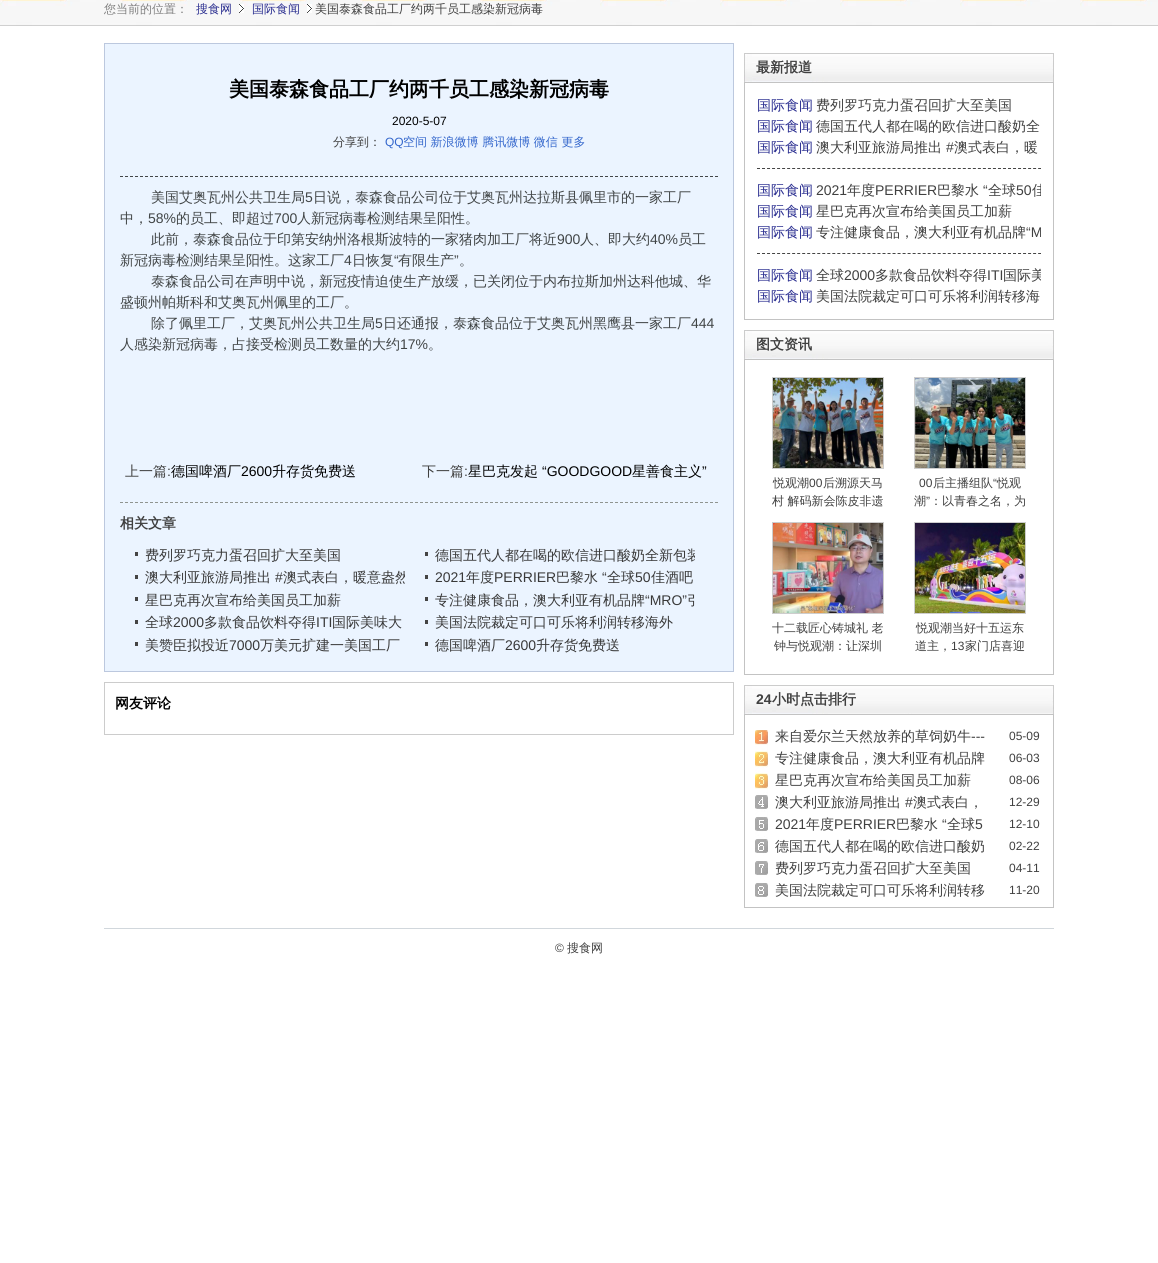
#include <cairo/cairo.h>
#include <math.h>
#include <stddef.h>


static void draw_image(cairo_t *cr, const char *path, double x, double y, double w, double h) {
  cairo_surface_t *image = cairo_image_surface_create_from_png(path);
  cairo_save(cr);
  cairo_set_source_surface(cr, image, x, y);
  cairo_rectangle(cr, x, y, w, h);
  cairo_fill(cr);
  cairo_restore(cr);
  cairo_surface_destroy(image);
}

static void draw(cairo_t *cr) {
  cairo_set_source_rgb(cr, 1, 1, 1);
  cairo_paint(cr);
  draw_image(cr, "images/1.png", 0, 0, 1158, 26);
  draw_image(cr, "images/2.png", 239, 4, 5, 9);
  draw_image(cr, "images/2.png", 307, 4, 5, 9);
  cairo_set_source_rgb(cr, 235 / 255.0, 244 / 255.0, 1);
  cairo_rectangle(cr, 104.5, 43.5, 629, 628);
  cairo_fill_preserve(cr);
  cairo_set_source_rgb(cr, 188 / 255.0, 200 / 255.0, 222 / 255.0);
  cairo_set_line_width(cr, 1);
  cairo_stroke(cr);
  cairo_new_path(cr);
  cairo_move_to(cr, 120, 176.5);
  cairo_line_to(cr, 718, 176.5);
  cairo_set_source_rgb(cr, 66 / 255.0, 70 / 255.0, 71 / 255.0);
  cairo_set_dash(cr, (double[]){3, 2}, 2, 0);
  cairo_stroke(cr);
  cairo_new_path(cr);
  cairo_move_to(cr, 120, 502.5);
  cairo_line_to(cr, 718, 502.5);
  cairo_set_source_rgb(cr, 143 / 255.0, 148 / 255.0, 144 / 255.0);
  cairo_stroke(cr);
  cairo_set_source_rgb(cr, 68 / 255.0, 68 / 255.0, 68 / 255.0);
  cairo_rectangle(cr, 135, 552, 3, 4);
  cairo_fill(cr);
  cairo_rectangle(cr, 425, 552, 3, 4);
  cairo_fill(cr);
  cairo_rectangle(cr, 135, 575, 3, 4);
  cairo_fill(cr);
  cairo_rectangle(cr, 425, 575, 3, 4);
  cairo_fill(cr);
  cairo_rectangle(cr, 135, 597, 3, 4);
  cairo_fill(cr);
  cairo_rectangle(cr, 425, 597, 3, 4);
  cairo_fill(cr);
  cairo_rectangle(cr, 135, 620, 3, 4);
  cairo_fill(cr);
  cairo_rectangle(cr, 425, 620, 3, 4);
  cairo_fill(cr);
  cairo_rectangle(cr, 135, 642, 3, 4);
  cairo_fill(cr);
  cairo_rectangle(cr, 425, 642, 3, 4);
  cairo_fill(cr);
  cairo_rectangle(cr, 104.5, 682.5, 629, 52);
  cairo_set_source_rgb(cr, 204 / 255.0, 204 / 255.0, 204 / 255.0);
  cairo_set_dash(cr, NULL, 0, 0);
  cairo_stroke(cr);
  draw_image(cr, "images/3.png", 744, 53, 310, 29);
  cairo_rectangle(cr, 744.5, 82.5, 309, 237);
  cairo_set_source_rgb(cr, 195 / 255.0, 195 / 255.0, 195 / 255.0);
  cairo_stroke(cr);
  cairo_new_path(cr);
  cairo_move_to(cr, 757, 168.5);
  cairo_line_to(cr, 1041, 168.5);
  cairo_set_source_rgb(cr, 68 / 255.0, 68 / 255.0, 68 / 255.0);
  cairo_set_dash(cr, (double[]){3, 2.02}, 2, 0);
  cairo_stroke(cr);
  cairo_new_path(cr);
  cairo_move_to(cr, 757, 253.5);
  cairo_line_to(cr, 1041, 253.5);
  cairo_stroke(cr);
  draw_image(cr, "images/3.png", 744, 330, 310, 29);
  cairo_rectangle(cr, 744.5, 359.5, 309, 315);
  cairo_set_source_rgb(cr, 195 / 255.0, 195 / 255.0, 195 / 255.0);
  cairo_set_dash(cr, NULL, 0, 0);
  cairo_stroke(cr);
  cairo_rectangle(cr, 772.5, 377.5, 111, 91);
  cairo_set_source_rgb(cr, 205 / 255.0, 205 / 255.0, 205 / 255.0);
  cairo_stroke(cr);
  draw_image(cr, "images/4.png", 773, 378, 110, 90);
  cairo_rectangle(cr, 914.5, 377.5, 111, 91);
  cairo_stroke(cr);
  draw_image(cr, "images/5.png", 915, 378, 110, 90);
  cairo_rectangle(cr, 772.5, 522.5, 111, 91);
  cairo_stroke(cr);
  draw_image(cr, "images/6.png", 773, 523, 110, 90);
  cairo_rectangle(cr, 914.5, 522.5, 111, 91);
  cairo_stroke(cr);
  draw_image(cr, "images/7.png", 915, 523, 110, 90);
  draw_image(cr, "images/3.png", 744, 685, 310, 29);
  cairo_rectangle(cr, 744.5, 714.5, 309, 193);
  cairo_set_source_rgb(cr, 195 / 255.0, 195 / 255.0, 195 / 255.0);
  cairo_stroke(cr);
  draw_image(cr, "images/8.png", 755, 730, 13, 167);
  cairo_set_source_rgb(cr, 209 / 255.0, 215 / 255.0, 220 / 255.0);
  cairo_rectangle(cr, 104, 928, 950, 1);
  cairo_fill(cr);
  cairo_select_font_face(cr, "WenQuanYi Zen Hei Medium", CAIRO_FONT_SLANT_NORMAL, CAIRO_FONT_WEIGHT_NORMAL);
  cairo_set_font_size(cr, 12);
  cairo_set_source_rgb(cr, 128 / 255.0, 128 / 255.0, 128 / 255.0);
  cairo_move_to(cr, 104, 13);
  cairo_show_text(cr, "您当前的位置：");
  cairo_set_source_rgb(cr, 44 / 255.0, 48 / 255.0, 145 / 255.0);
  cairo_move_to(cr, 196, 13);
  cairo_show_text(cr, "搜食网");
  cairo_move_to(cr, 252, 13);
  cairo_show_text(cr, "国际食闻");
  cairo_set_source_rgb(cr, 64 / 255.0, 64 / 255.0, 64 / 255.0);
  cairo_move_to(cr, 315, 13);
  cairo_show_text(cr, "美国泰森食品工厂约两千员工感染新冠病毒");
  cairo_select_font_face(cr, "WenQuanYi Zen Hei", CAIRO_FONT_SLANT_NORMAL, CAIRO_FONT_WEIGHT_BOLD);
  cairo_set_font_size(cr, 20);
  cairo_set_source_rgb(cr, 0, 0, 0);
  cairo_move_to(cr, 229, 96);
  cairo_show_text(cr, "美国泰森食品工厂约两千员工感染新冠病毒");
  cairo_select_font_face(cr, "Liberation Sans", CAIRO_FONT_SLANT_NORMAL, CAIRO_FONT_WEIGHT_NORMAL);
  cairo_set_font_size(cr, 12);
  cairo_move_to(cr, 392, 125);
  cairo_show_text(cr, "2020-5-07");
  cairo_select_font_face(cr, "WenQuanYi Zen Hei Medium", CAIRO_FONT_SLANT_NORMAL, CAIRO_FONT_WEIGHT_NORMAL);
  cairo_set_source_rgb(cr, 64 / 255.0, 64 / 255.0, 64 / 255.0);
  cairo_move_to(cr, 333, 146);
  cairo_show_text(cr, "分享到：");
  cairo_select_font_face(cr, "Liberation Sans", CAIRO_FONT_SLANT_NORMAL, CAIRO_FONT_WEIGHT_NORMAL);
  cairo_set_source_rgb(cr, 51 / 255.0, 102 / 255.0, 204 / 255.0);
  cairo_move_to(cr, 385, 146);
  cairo_show_text(cr, "QQ");
  cairo_select_font_face(cr, "WenQuanYi Zen Hei Medium", CAIRO_FONT_SLANT_NORMAL, CAIRO_FONT_WEIGHT_NORMAL);
  cairo_move_to(cr, 403, 146);
  cairo_show_text(cr, "空间 新浪微博 腾讯微博 微信 更多");
  cairo_set_font_size(cr, 14);
  cairo_set_source_rgb(cr, 65 / 255.0, 69 / 255.0, 70 / 255.0);
  cairo_move_to(cr, 151, 202);
  cairo_show_text(cr, "美国艾奥瓦州公共卫生局");
  cairo_select_font_face(cr, "Liberation Sans", CAIRO_FONT_SLANT_NORMAL, CAIRO_FONT_WEIGHT_NORMAL);
  cairo_move_to(cr, 305, 202);
  cairo_show_text(cr, "5");
  cairo_select_font_face(cr, "WenQuanYi Zen Hei Medium", CAIRO_FONT_SLANT_NORMAL, CAIRO_FONT_WEIGHT_NORMAL);
  cairo_move_to(cr, 313, 202);
  cairo_show_text(cr, "日说，泰森食品公司位于艾奥瓦州达拉斯县佩里市的一家工厂");
  cairo_move_to(cr, 120, 223);
  cairo_show_text(cr, "中，");
  cairo_select_font_face(cr, "Liberation Sans", CAIRO_FONT_SLANT_NORMAL, CAIRO_FONT_WEIGHT_NORMAL);
  cairo_move_to(cr, 148, 223);
  cairo_show_text(cr, "58%");
  cairo_select_font_face(cr, "WenQuanYi Zen Hei Medium", CAIRO_FONT_SLANT_NORMAL, CAIRO_FONT_WEIGHT_NORMAL);
  cairo_move_to(cr, 176, 223);
  cairo_show_text(cr, "的员工、即超过");
  cairo_select_font_face(cr, "Liberation Sans", CAIRO_FONT_SLANT_NORMAL, CAIRO_FONT_WEIGHT_NORMAL);
  cairo_move_to(cr, 274, 223);
  cairo_show_text(cr, "700");
  cairo_select_font_face(cr, "WenQuanYi Zen Hei Medium", CAIRO_FONT_SLANT_NORMAL, CAIRO_FONT_WEIGHT_NORMAL);
  cairo_move_to(cr, 297, 223);
  cairo_show_text(cr, "人新冠病毒检测结果呈阳性。");
  cairo_move_to(cr, 151, 244);
  cairo_show_text(cr, "此前，泰森食品位于印第安纳州洛根斯波特的一家猪肉加工厂将近");
  cairo_select_font_face(cr, "Liberation Sans", CAIRO_FONT_SLANT_NORMAL, CAIRO_FONT_WEIGHT_NORMAL);
  cairo_move_to(cr, 557, 244);
  cairo_show_text(cr, "900");
  cairo_select_font_face(cr, "WenQuanYi Zen Hei Medium", CAIRO_FONT_SLANT_NORMAL, CAIRO_FONT_WEIGHT_NORMAL);
  cairo_move_to(cr, 580, 244);
  cairo_show_text(cr, "人、即大约");
  cairo_select_font_face(cr, "Liberation Sans", CAIRO_FONT_SLANT_NORMAL, CAIRO_FONT_WEIGHT_NORMAL);
  cairo_move_to(cr, 650, 244);
  cairo_show_text(cr, "40%");
  cairo_select_font_face(cr, "WenQuanYi Zen Hei Medium", CAIRO_FONT_SLANT_NORMAL, CAIRO_FONT_WEIGHT_NORMAL);
  cairo_move_to(cr, 678, 244);
  cairo_show_text(cr, "员工");
  cairo_move_to(cr, 120, 265);
  cairo_show_text(cr, "新冠病毒检测结果呈阳性。这家工厂");
  cairo_select_font_face(cr, "Liberation Sans", CAIRO_FONT_SLANT_NORMAL, CAIRO_FONT_WEIGHT_NORMAL);
  cairo_move_to(cr, 344, 265);
  cairo_show_text(cr, "4");
  cairo_select_font_face(cr, "WenQuanYi Zen Hei Medium", CAIRO_FONT_SLANT_NORMAL, CAIRO_FONT_WEIGHT_NORMAL);
  cairo_move_to(cr, 352, 265);
  cairo_show_text(cr, "日恢复");
  cairo_select_font_face(cr, "Liberation Sans", CAIRO_FONT_SLANT_NORMAL, CAIRO_FONT_WEIGHT_NORMAL);
  cairo_move_to(cr, 394, 265);
  cairo_show_text(cr, "“");
  cairo_select_font_face(cr, "WenQuanYi Zen Hei Medium", CAIRO_FONT_SLANT_NORMAL, CAIRO_FONT_WEIGHT_NORMAL);
  cairo_move_to(cr, 398, 265);
  cairo_show_text(cr, "有限生产");
  cairo_select_font_face(cr, "Liberation Sans", CAIRO_FONT_SLANT_NORMAL, CAIRO_FONT_WEIGHT_NORMAL);
  cairo_move_to(cr, 454, 265);
  cairo_show_text(cr, "”");
  cairo_select_font_face(cr, "WenQuanYi Zen Hei Medium", CAIRO_FONT_SLANT_NORMAL, CAIRO_FONT_WEIGHT_NORMAL);
  cairo_move_to(cr, 459, 265);
  cairo_show_text(cr, "。");
  cairo_move_to(cr, 151, 286);
  cairo_show_text(cr, "泰森食品公司在声明中说，新冠疫情迫使生产放缓，已关闭位于内布拉斯加州达科他城、华");
  cairo_move_to(cr, 120, 307);
  cairo_show_text(cr, "盛顿州帕斯科和艾奥瓦州佩里的工厂。");
  cairo_move_to(cr, 151, 328);
  cairo_show_text(cr, "除了佩里工厂，艾奥瓦州公共卫生局");
  cairo_select_font_face(cr, "Liberation Sans", CAIRO_FONT_SLANT_NORMAL, CAIRO_FONT_WEIGHT_NORMAL);
  cairo_move_to(cr, 375, 328);
  cairo_show_text(cr, "5");
  cairo_select_font_face(cr, "WenQuanYi Zen Hei Medium", CAIRO_FONT_SLANT_NORMAL, CAIRO_FONT_WEIGHT_NORMAL);
  cairo_move_to(cr, 383, 328);
  cairo_show_text(cr, "日还通报，泰森食品位于艾奥瓦州黑鹰县一家工厂");
  cairo_select_font_face(cr, "Liberation Sans", CAIRO_FONT_SLANT_NORMAL, CAIRO_FONT_WEIGHT_NORMAL);
  cairo_move_to(cr, 691, 328);
  cairo_show_text(cr, "444");
  cairo_select_font_face(cr, "WenQuanYi Zen Hei Medium", CAIRO_FONT_SLANT_NORMAL, CAIRO_FONT_WEIGHT_NORMAL);
  cairo_move_to(cr, 120, 349);
  cairo_show_text(cr, "人感染新冠病毒，占接受检测员工数量的大约");
  cairo_select_font_face(cr, "Liberation Sans", CAIRO_FONT_SLANT_NORMAL, CAIRO_FONT_WEIGHT_NORMAL);
  cairo_move_to(cr, 400, 349);
  cairo_show_text(cr, "17%");
  cairo_select_font_face(cr, "WenQuanYi Zen Hei Medium", CAIRO_FONT_SLANT_NORMAL, CAIRO_FONT_WEIGHT_NORMAL);
  cairo_move_to(cr, 428, 349);
  cairo_show_text(cr, "。");
  cairo_set_source_rgb(cr, 64 / 255.0, 64 / 255.0, 64 / 255.0);
  cairo_move_to(cr, 125, 476);
  cairo_show_text(cr, "上一篇");
  cairo_select_font_face(cr, "Liberation Sans", CAIRO_FONT_SLANT_NORMAL, CAIRO_FONT_WEIGHT_NORMAL);
  cairo_move_to(cr, 167, 476);
  cairo_show_text(cr, ":");
  cairo_select_font_face(cr, "WenQuanYi Zen Hei Medium", CAIRO_FONT_SLANT_NORMAL, CAIRO_FONT_WEIGHT_NORMAL);
  cairo_set_source_rgb(cr, 0, 0, 0);
  cairo_move_to(cr, 171, 476);
  cairo_show_text(cr, "德国啤酒厂");
  cairo_select_font_face(cr, "Liberation Sans", CAIRO_FONT_SLANT_NORMAL, CAIRO_FONT_WEIGHT_NORMAL);
  cairo_move_to(cr, 241, 476);
  cairo_show_text(cr, "2600");
  cairo_select_font_face(cr, "WenQuanYi Zen Hei Medium", CAIRO_FONT_SLANT_NORMAL, CAIRO_FONT_WEIGHT_NORMAL);
  cairo_move_to(cr, 272, 476);
  cairo_show_text(cr, "升存货免费送");
  cairo_set_source_rgb(cr, 64 / 255.0, 64 / 255.0, 64 / 255.0);
  cairo_move_to(cr, 422, 476);
  cairo_show_text(cr, "下一篇");
  cairo_select_font_face(cr, "Liberation Sans", CAIRO_FONT_SLANT_NORMAL, CAIRO_FONT_WEIGHT_NORMAL);
  cairo_move_to(cr, 464, 476);
  cairo_show_text(cr, ":");
  cairo_select_font_face(cr, "WenQuanYi Zen Hei Medium", CAIRO_FONT_SLANT_NORMAL, CAIRO_FONT_WEIGHT_NORMAL);
  cairo_set_source_rgb(cr, 0, 0, 0);
  cairo_move_to(cr, 468, 476);
  cairo_show_text(cr, "星巴克发起");
  cairo_select_font_face(cr, "Liberation Sans", CAIRO_FONT_SLANT_NORMAL, CAIRO_FONT_WEIGHT_NORMAL);
  cairo_move_to(cr, 542, 476);
  cairo_show_text(cr, "“GOODGOOD");
  cairo_select_font_face(cr, "WenQuanYi Zen Hei Medium", CAIRO_FONT_SLANT_NORMAL, CAIRO_FONT_WEIGHT_NORMAL);
  cairo_move_to(cr, 632, 476);
  cairo_show_text(cr, "星善食主义");
  cairo_select_font_face(cr, "Liberation Sans", CAIRO_FONT_SLANT_NORMAL, CAIRO_FONT_WEIGHT_NORMAL);
  cairo_move_to(cr, 702, 476);
  cairo_show_text(cr, "”");
  cairo_select_font_face(cr, "WenQuanYi Zen Hei", CAIRO_FONT_SLANT_NORMAL, CAIRO_FONT_WEIGHT_BOLD);
  cairo_set_source_rgb(cr, 64 / 255.0, 64 / 255.0, 64 / 255.0);
  cairo_move_to(cr, 120, 528);
  cairo_show_text(cr, "相关文章");
  cairo_select_font_face(cr, "WenQuanYi Zen Hei Medium", CAIRO_FONT_SLANT_NORMAL, CAIRO_FONT_WEIGHT_NORMAL);
  cairo_set_source_rgb(cr, 57 / 255.0, 57 / 255.0, 57 / 255.0);
  cairo_move_to(cr, 145, 560);
  cairo_show_text(cr, "费列罗巧克力蛋召回扩大至美国");
  cairo_save(cr);
  cairo_rectangle(cr, 425, 544, 270, 22);
  cairo_clip(cr);
  cairo_move_to(cr, 435, 560);
  cairo_show_text(cr, "德国五代人都在喝的欧信进口酸奶全新包装");
  cairo_restore(cr);
  cairo_move_to(cr, 145, 582);
  cairo_show_text(cr, "澳大利亚旅游局推出");
  cairo_select_font_face(cr, "Liberation Sans", CAIRO_FONT_SLANT_NORMAL, CAIRO_FONT_WEIGHT_NORMAL);
  cairo_move_to(cr, 275, 582);
  cairo_show_text(cr, "#");
  cairo_save(cr);
  cairo_rectangle(cr, 135, 566, 270, 23);
  cairo_clip(cr);
  cairo_select_font_face(cr, "WenQuanYi Zen Hei Medium", CAIRO_FONT_SLANT_NORMAL, CAIRO_FONT_WEIGHT_NORMAL);
  cairo_move_to(cr, 283, 582);
  cairo_show_text(cr, "澳式表白，暖意盎然");
  cairo_restore(cr);
  cairo_move_to(cr, 435, 582);
  cairo_show_text(cr, "2021");
  cairo_select_font_face(cr, "WenQuanYi Zen Hei Medium", CAIRO_FONT_SLANT_NORMAL, CAIRO_FONT_WEIGHT_NORMAL);
  cairo_move_to(cr, 466, 582);
  cairo_show_text(cr, "年度");
  cairo_select_font_face(cr, "Liberation Sans", CAIRO_FONT_SLANT_NORMAL, CAIRO_FONT_WEIGHT_NORMAL);
  cairo_move_to(cr, 494, 582);
  cairo_show_text(cr, "PERRIER");
  cairo_select_font_face(cr, "WenQuanYi Zen Hei Medium", CAIRO_FONT_SLANT_NORMAL, CAIRO_FONT_WEIGHT_NORMAL);
  cairo_move_to(cr, 556, 582);
  cairo_show_text(cr, "巴黎水");
  cairo_select_font_face(cr, "Liberation Sans", CAIRO_FONT_SLANT_NORMAL, CAIRO_FONT_WEIGHT_NORMAL);
  cairo_move_to(cr, 602, 582);
  cairo_show_text(cr, "“");
  cairo_select_font_face(cr, "WenQuanYi Zen Hei Medium", CAIRO_FONT_SLANT_NORMAL, CAIRO_FONT_WEIGHT_NORMAL);
  cairo_move_to(cr, 607, 582);
  cairo_show_text(cr, "全球");
  cairo_select_font_face(cr, "Liberation Sans", CAIRO_FONT_SLANT_NORMAL, CAIRO_FONT_WEIGHT_NORMAL);
  cairo_move_to(cr, 635, 582);
  cairo_show_text(cr, "50");
  cairo_select_font_face(cr, "WenQuanYi Zen Hei Medium", CAIRO_FONT_SLANT_NORMAL, CAIRO_FONT_WEIGHT_NORMAL);
  cairo_move_to(cr, 651, 582);
  cairo_show_text(cr, "佳酒吧");
  cairo_move_to(cr, 145, 605);
  cairo_show_text(cr, "星巴克再次宣布给美国员工加薪");
  cairo_move_to(cr, 435, 605);
  cairo_show_text(cr, "专注健康食品，澳大利亚有机品牌");
  cairo_select_font_face(cr, "Liberation Sans", CAIRO_FONT_SLANT_NORMAL, CAIRO_FONT_WEIGHT_NORMAL);
  cairo_move_to(cr, 645, 605);
  cairo_show_text(cr, "“MRO”");
  cairo_save(cr);
  cairo_rectangle(cr, 425, 589, 270, 22);
  cairo_clip(cr);
  cairo_select_font_face(cr, "WenQuanYi Zen Hei Medium", CAIRO_FONT_SLANT_NORMAL, CAIRO_FONT_WEIGHT_NORMAL);
  cairo_move_to(cr, 687, 605);
  cairo_show_text(cr, "引");
  cairo_restore(cr);
  cairo_select_font_face(cr, "WenQuanYi Zen Hei Medium", CAIRO_FONT_SLANT_NORMAL, CAIRO_FONT_WEIGHT_NORMAL);
  cairo_move_to(cr, 145, 627);
  cairo_show_text(cr, "全球");
  cairo_select_font_face(cr, "Liberation Sans", CAIRO_FONT_SLANT_NORMAL, CAIRO_FONT_WEIGHT_NORMAL);
  cairo_move_to(cr, 173, 627);
  cairo_show_text(cr, "2000");
  cairo_select_font_face(cr, "WenQuanYi Zen Hei Medium", CAIRO_FONT_SLANT_NORMAL, CAIRO_FONT_WEIGHT_NORMAL);
  cairo_move_to(cr, 204, 627);
  cairo_show_text(cr, "多款食品饮料夺得");
  cairo_select_font_face(cr, "Liberation Sans", CAIRO_FONT_SLANT_NORMAL, CAIRO_FONT_WEIGHT_NORMAL);
  cairo_move_to(cr, 316, 627);
  cairo_show_text(cr, "ITI");
  cairo_select_font_face(cr, "WenQuanYi Zen Hei Medium", CAIRO_FONT_SLANT_NORMAL, CAIRO_FONT_WEIGHT_NORMAL);
  cairo_move_to(cr, 332, 627);
  cairo_show_text(cr, "国际美味大");
  cairo_move_to(cr, 435, 627);
  cairo_show_text(cr, "美国法院裁定可口可乐将利润转移海外");
  cairo_move_to(cr, 145, 650);
  cairo_show_text(cr, "美赞臣拟投近");
  cairo_select_font_face(cr, "Liberation Sans", CAIRO_FONT_SLANT_NORMAL, CAIRO_FONT_WEIGHT_NORMAL);
  cairo_move_to(cr, 229, 650);
  cairo_show_text(cr, "7000");
  cairo_select_font_face(cr, "WenQuanYi Zen Hei Medium", CAIRO_FONT_SLANT_NORMAL, CAIRO_FONT_WEIGHT_NORMAL);
  cairo_move_to(cr, 260, 650);
  cairo_show_text(cr, "万美元扩建一美国工厂");
  cairo_move_to(cr, 435, 650);
  cairo_show_text(cr, "德国啤酒厂");
  cairo_select_font_face(cr, "Liberation Sans", CAIRO_FONT_SLANT_NORMAL, CAIRO_FONT_WEIGHT_NORMAL);
  cairo_move_to(cr, 505, 650);
  cairo_show_text(cr, "2600");
  cairo_select_font_face(cr, "WenQuanYi Zen Hei Medium", CAIRO_FONT_SLANT_NORMAL, CAIRO_FONT_WEIGHT_NORMAL);
  cairo_move_to(cr, 536, 650);
  cairo_show_text(cr, "升存货免费送");
  cairo_select_font_face(cr, "WenQuanYi Zen Hei", CAIRO_FONT_SLANT_NORMAL, CAIRO_FONT_WEIGHT_BOLD);
  cairo_set_source_rgb(cr, 0, 0, 0);
  cairo_move_to(cr, 115, 708);
  cairo_show_text(cr, "网友评论");
  cairo_set_source_rgb(cr, 64 / 255.0, 64 / 255.0, 64 / 255.0);
  cairo_move_to(cr, 756, 72);
  cairo_show_text(cr, "最新报道");
  cairo_select_font_face(cr, "WenQuanYi Zen Hei Medium", CAIRO_FONT_SLANT_NORMAL, CAIRO_FONT_WEIGHT_NORMAL);
  cairo_set_source_rgb(cr, 44 / 255.0, 48 / 255.0, 145 / 255.0);
  cairo_move_to(cr, 757, 110);
  cairo_show_text(cr, "国际食闻");
  cairo_set_source_rgb(cr, 64 / 255.0, 64 / 255.0, 64 / 255.0);
  cairo_move_to(cr, 816, 110);
  cairo_show_text(cr, "费列罗巧克力蛋召回扩大至美国");
  cairo_set_source_rgb(cr, 44 / 255.0, 48 / 255.0, 145 / 255.0);
  cairo_move_to(cr, 757, 131);
  cairo_show_text(cr, "国际食闻");
  cairo_set_source_rgb(cr, 64 / 255.0, 64 / 255.0, 64 / 255.0);
  cairo_move_to(cr, 816, 131);
  cairo_show_text(cr, "德国五代人都在喝的欧信进口酸奶全");
  cairo_set_source_rgb(cr, 44 / 255.0, 48 / 255.0, 145 / 255.0);
  cairo_move_to(cr, 757, 152);
  cairo_show_text(cr, "国际食闻");
  cairo_set_source_rgb(cr, 64 / 255.0, 64 / 255.0, 64 / 255.0);
  cairo_move_to(cr, 816, 152);
  cairo_show_text(cr, "澳大利亚旅游局推出");
  cairo_select_font_face(cr, "Liberation Sans", CAIRO_FONT_SLANT_NORMAL, CAIRO_FONT_WEIGHT_NORMAL);
  cairo_move_to(cr, 946, 152);
  cairo_show_text(cr, "#");
  cairo_select_font_face(cr, "WenQuanYi Zen Hei Medium", CAIRO_FONT_SLANT_NORMAL, CAIRO_FONT_WEIGHT_NORMAL);
  cairo_move_to(cr, 954, 152);
  cairo_show_text(cr, "澳式表白，暖");
  cairo_set_source_rgb(cr, 44 / 255.0, 48 / 255.0, 145 / 255.0);
  cairo_move_to(cr, 757, 195);
  cairo_show_text(cr, "国际食闻");
  cairo_select_font_face(cr, "Liberation Sans", CAIRO_FONT_SLANT_NORMAL, CAIRO_FONT_WEIGHT_NORMAL);
  cairo_set_source_rgb(cr, 64 / 255.0, 64 / 255.0, 64 / 255.0);
  cairo_move_to(cr, 816, 195);
  cairo_show_text(cr, "2021");
  cairo_select_font_face(cr, "WenQuanYi Zen Hei Medium", CAIRO_FONT_SLANT_NORMAL, CAIRO_FONT_WEIGHT_NORMAL);
  cairo_move_to(cr, 847, 195);
  cairo_show_text(cr, "年度");
  cairo_select_font_face(cr, "Liberation Sans", CAIRO_FONT_SLANT_NORMAL, CAIRO_FONT_WEIGHT_NORMAL);
  cairo_move_to(cr, 875, 195);
  cairo_show_text(cr, "PERRIER");
  cairo_select_font_face(cr, "WenQuanYi Zen Hei Medium", CAIRO_FONT_SLANT_NORMAL, CAIRO_FONT_WEIGHT_NORMAL);
  cairo_move_to(cr, 937, 195);
  cairo_show_text(cr, "巴黎水");
  cairo_select_font_face(cr, "Liberation Sans", CAIRO_FONT_SLANT_NORMAL, CAIRO_FONT_WEIGHT_NORMAL);
  cairo_move_to(cr, 983, 195);
  cairo_show_text(cr, "“");
  cairo_select_font_face(cr, "WenQuanYi Zen Hei Medium", CAIRO_FONT_SLANT_NORMAL, CAIRO_FONT_WEIGHT_NORMAL);
  cairo_move_to(cr, 988, 195);
  cairo_show_text(cr, "全球");
  cairo_select_font_face(cr, "Liberation Sans", CAIRO_FONT_SLANT_NORMAL, CAIRO_FONT_WEIGHT_NORMAL);
  cairo_move_to(cr, 1016, 195);
  cairo_show_text(cr, "50");
  cairo_save(cr);
  cairo_rectangle(cr, 757, 180, 284, 21);
  cairo_clip(cr);
  cairo_select_font_face(cr, "WenQuanYi Zen Hei Medium", CAIRO_FONT_SLANT_NORMAL, CAIRO_FONT_WEIGHT_NORMAL);
  cairo_move_to(cr, 1032, 195);
  cairo_show_text(cr, "佳");
  cairo_restore(cr);
  cairo_select_font_face(cr, "WenQuanYi Zen Hei Medium", CAIRO_FONT_SLANT_NORMAL, CAIRO_FONT_WEIGHT_NORMAL);
  cairo_set_source_rgb(cr, 44 / 255.0, 48 / 255.0, 145 / 255.0);
  cairo_move_to(cr, 757, 216);
  cairo_show_text(cr, "国际食闻");
  cairo_set_source_rgb(cr, 64 / 255.0, 64 / 255.0, 64 / 255.0);
  cairo_move_to(cr, 816, 216);
  cairo_show_text(cr, "星巴克再次宣布给美国员工加薪");
  cairo_set_source_rgb(cr, 44 / 255.0, 48 / 255.0, 145 / 255.0);
  cairo_move_to(cr, 757, 237);
  cairo_show_text(cr, "国际食闻");
  cairo_set_source_rgb(cr, 64 / 255.0, 64 / 255.0, 64 / 255.0);
  cairo_move_to(cr, 816, 237);
  cairo_show_text(cr, "专注健康食品，澳大利亚有机品牌");
  cairo_save(cr);
  cairo_rectangle(cr, 757, 222, 284, 21);
  cairo_clip(cr);
  cairo_select_font_face(cr, "Liberation Sans", CAIRO_FONT_SLANT_NORMAL, CAIRO_FONT_WEIGHT_NORMAL);
  cairo_move_to(cr, 1026, 237);
  cairo_show_text(cr, "“M");
  cairo_restore(cr);
  cairo_set_source_rgb(cr, 44 / 255.0, 48 / 255.0, 145 / 255.0);
  cairo_move_to(cr, 757, 280);
  cairo_show_text(cr, "国际食闻");
  cairo_set_source_rgb(cr, 64 / 255.0, 64 / 255.0, 64 / 255.0);
  cairo_move_to(cr, 816, 280);
  cairo_show_text(cr, "全球");
  cairo_select_font_face(cr, "Liberation Sans", CAIRO_FONT_SLANT_NORMAL, CAIRO_FONT_WEIGHT_NORMAL);
  cairo_move_to(cr, 844, 280);
  cairo_show_text(cr, "2000");
  cairo_select_font_face(cr, "WenQuanYi Zen Hei Medium", CAIRO_FONT_SLANT_NORMAL, CAIRO_FONT_WEIGHT_NORMAL);
  cairo_move_to(cr, 875, 280);
  cairo_show_text(cr, "多款食品饮料夺得");
  cairo_select_font_face(cr, "Liberation Sans", CAIRO_FONT_SLANT_NORMAL, CAIRO_FONT_WEIGHT_NORMAL);
  cairo_move_to(cr, 987, 280);
  cairo_show_text(cr, "ITI");
  cairo_save(cr);
  cairo_rectangle(cr, 757, 265, 284, 21);
  cairo_clip(cr);
  cairo_select_font_face(cr, "WenQuanYi Zen Hei Medium", CAIRO_FONT_SLANT_NORMAL, CAIRO_FONT_WEIGHT_NORMAL);
  cairo_move_to(cr, 1003, 280);
  cairo_show_text(cr, "国际美");
  cairo_restore(cr);
  cairo_select_font_face(cr, "WenQuanYi Zen Hei Medium", CAIRO_FONT_SLANT_NORMAL, CAIRO_FONT_WEIGHT_NORMAL);
  cairo_set_source_rgb(cr, 44 / 255.0, 48 / 255.0, 145 / 255.0);
  cairo_move_to(cr, 757, 301);
  cairo_show_text(cr, "国际食闻");
  cairo_set_source_rgb(cr, 64 / 255.0, 64 / 255.0, 64 / 255.0);
  cairo_move_to(cr, 816, 301);
  cairo_show_text(cr, "美国法院裁定可口可乐将利润转移海");
  cairo_select_font_face(cr, "WenQuanYi Zen Hei", CAIRO_FONT_SLANT_NORMAL, CAIRO_FONT_WEIGHT_BOLD);
  cairo_move_to(cr, 756, 349);
  cairo_show_text(cr, "图文资讯");
  cairo_select_font_face(cr, "WenQuanYi Zen Hei Medium", CAIRO_FONT_SLANT_NORMAL, CAIRO_FONT_WEIGHT_NORMAL);
  cairo_set_font_size(cr, 12);
  cairo_move_to(cr, 773, 487);
  cairo_show_text(cr, "悦观潮");
  cairo_select_font_face(cr, "Liberation Sans", CAIRO_FONT_SLANT_NORMAL, CAIRO_FONT_WEIGHT_NORMAL);
  cairo_move_to(cr, 809, 487);
  cairo_show_text(cr, "00");
  cairo_select_font_face(cr, "WenQuanYi Zen Hei Medium", CAIRO_FONT_SLANT_NORMAL, CAIRO_FONT_WEIGHT_NORMAL);
  cairo_move_to(cr, 823, 487);
  cairo_show_text(cr, "后溯源天马");
  cairo_move_to(cr, 772, 505);
  cairo_show_text(cr, "村 解码新会陈皮非遗");
  cairo_select_font_face(cr, "Liberation Sans", CAIRO_FONT_SLANT_NORMAL, CAIRO_FONT_WEIGHT_NORMAL);
  cairo_move_to(cr, 919, 487);
  cairo_show_text(cr, "00");
  cairo_select_font_face(cr, "WenQuanYi Zen Hei Medium", CAIRO_FONT_SLANT_NORMAL, CAIRO_FONT_WEIGHT_NORMAL);
  cairo_move_to(cr, 933, 487);
  cairo_show_text(cr, "后主播组队");
  cairo_select_font_face(cr, "Liberation Sans", CAIRO_FONT_SLANT_NORMAL, CAIRO_FONT_WEIGHT_NORMAL);
  cairo_move_to(cr, 993, 487);
  cairo_show_text(cr, "“");
  cairo_select_font_face(cr, "WenQuanYi Zen Hei Medium", CAIRO_FONT_SLANT_NORMAL, CAIRO_FONT_WEIGHT_NORMAL);
  cairo_move_to(cr, 997, 487);
  cairo_show_text(cr, "悦观");
  cairo_move_to(cr, 914, 505);
  cairo_show_text(cr, "潮");
  cairo_select_font_face(cr, "Liberation Sans", CAIRO_FONT_SLANT_NORMAL, CAIRO_FONT_WEIGHT_NORMAL);
  cairo_move_to(cr, 926, 505);
  cairo_show_text(cr, "”");
  cairo_select_font_face(cr, "WenQuanYi Zen Hei Medium", CAIRO_FONT_SLANT_NORMAL, CAIRO_FONT_WEIGHT_NORMAL);
  cairo_move_to(cr, 930, 505);
  cairo_show_text(cr, "：以青春之名，为");
  cairo_move_to(cr, 772, 632);
  cairo_show_text(cr, "十二载匠心铸城礼 老");
  cairo_move_to(cr, 774, 650);
  cairo_show_text(cr, "钟与悦观潮：让深圳");
  cairo_move_to(cr, 916, 632);
  cairo_show_text(cr, "悦观潮当好十五运东");
  cairo_move_to(cr, 915, 650);
  cairo_show_text(cr, "道主，");
  cairo_select_font_face(cr, "Liberation Sans", CAIRO_FONT_SLANT_NORMAL, CAIRO_FONT_WEIGHT_NORMAL);
  cairo_move_to(cr, 951, 650);
  cairo_show_text(cr, "13");
  cairo_select_font_face(cr, "WenQuanYi Zen Hei Medium", CAIRO_FONT_SLANT_NORMAL, CAIRO_FONT_WEIGHT_NORMAL);
  cairo_move_to(cr, 965, 650);
  cairo_show_text(cr, "家门店喜迎");
  cairo_select_font_face(cr, "Liberation Sans", CAIRO_FONT_SLANT_NORMAL, CAIRO_FONT_WEIGHT_BOLD);
  cairo_set_font_size(cr, 14);
  cairo_move_to(cr, 756, 704);
  cairo_show_text(cr, "24");
  cairo_select_font_face(cr, "WenQuanYi Zen Hei", CAIRO_FONT_SLANT_NORMAL, CAIRO_FONT_WEIGHT_BOLD);
  cairo_move_to(cr, 772, 704);
  cairo_show_text(cr, "小时点击排行");
  cairo_select_font_face(cr, "WenQuanYi Zen Hei Medium", CAIRO_FONT_SLANT_NORMAL, CAIRO_FONT_WEIGHT_NORMAL);
  cairo_move_to(cr, 775, 741);
  cairo_show_text(cr, "来自爱尔兰天然放养的草饲奶牛");
  cairo_select_font_face(cr, "Liberation Sans", CAIRO_FONT_SLANT_NORMAL, CAIRO_FONT_WEIGHT_NORMAL);
  cairo_move_to(cr, 971, 741);
  cairo_show_text(cr, "---");
  cairo_set_font_size(cr, 12);
  cairo_move_to(cr, 1009, 740);
  cairo_show_text(cr, "05-09");
  cairo_select_font_face(cr, "WenQuanYi Zen Hei Medium", CAIRO_FONT_SLANT_NORMAL, CAIRO_FONT_WEIGHT_NORMAL);
  cairo_set_font_size(cr, 14);
  cairo_move_to(cr, 775, 763);
  cairo_show_text(cr, "专注健康食品，澳大利亚有机品牌");
  cairo_select_font_face(cr, "Liberation Sans", CAIRO_FONT_SLANT_NORMAL, CAIRO_FONT_WEIGHT_NORMAL);
  cairo_set_font_size(cr, 12);
  cairo_move_to(cr, 1009, 762);
  cairo_show_text(cr, "06-03");
  cairo_select_font_face(cr, "WenQuanYi Zen Hei Medium", CAIRO_FONT_SLANT_NORMAL, CAIRO_FONT_WEIGHT_NORMAL);
  cairo_set_font_size(cr, 14);
  cairo_move_to(cr, 775, 785);
  cairo_show_text(cr, "星巴克再次宣布给美国员工加薪");
  cairo_select_font_face(cr, "Liberation Sans", CAIRO_FONT_SLANT_NORMAL, CAIRO_FONT_WEIGHT_NORMAL);
  cairo_set_font_size(cr, 12);
  cairo_move_to(cr, 1009, 784);
  cairo_show_text(cr, "08-06");
  cairo_select_font_face(cr, "WenQuanYi Zen Hei Medium", CAIRO_FONT_SLANT_NORMAL, CAIRO_FONT_WEIGHT_NORMAL);
  cairo_set_font_size(cr, 14);
  cairo_move_to(cr, 775, 807);
  cairo_show_text(cr, "澳大利亚旅游局推出");
  cairo_select_font_face(cr, "Liberation Sans", CAIRO_FONT_SLANT_NORMAL, CAIRO_FONT_WEIGHT_NORMAL);
  cairo_move_to(cr, 905, 807);
  cairo_show_text(cr, "#");
  cairo_select_font_face(cr, "WenQuanYi Zen Hei Medium", CAIRO_FONT_SLANT_NORMAL, CAIRO_FONT_WEIGHT_NORMAL);
  cairo_move_to(cr, 913, 807);
  cairo_show_text(cr, "澳式表白，");
  cairo_select_font_face(cr, "Liberation Sans", CAIRO_FONT_SLANT_NORMAL, CAIRO_FONT_WEIGHT_NORMAL);
  cairo_set_font_size(cr, 12);
  cairo_move_to(cr, 1009, 806);
  cairo_show_text(cr, "12-29");
  cairo_set_font_size(cr, 14);
  cairo_move_to(cr, 775, 829);
  cairo_show_text(cr, "2021");
  cairo_select_font_face(cr, "WenQuanYi Zen Hei Medium", CAIRO_FONT_SLANT_NORMAL, CAIRO_FONT_WEIGHT_NORMAL);
  cairo_move_to(cr, 806, 829);
  cairo_show_text(cr, "年度");
  cairo_select_font_face(cr, "Liberation Sans", CAIRO_FONT_SLANT_NORMAL, CAIRO_FONT_WEIGHT_NORMAL);
  cairo_move_to(cr, 834, 829);
  cairo_show_text(cr, "PERRIER");
  cairo_select_font_face(cr, "WenQuanYi Zen Hei Medium", CAIRO_FONT_SLANT_NORMAL, CAIRO_FONT_WEIGHT_NORMAL);
  cairo_move_to(cr, 896, 829);
  cairo_show_text(cr, "巴黎水");
  cairo_select_font_face(cr, "Liberation Sans", CAIRO_FONT_SLANT_NORMAL, CAIRO_FONT_WEIGHT_NORMAL);
  cairo_move_to(cr, 942, 829);
  cairo_show_text(cr, "“");
  cairo_select_font_face(cr, "WenQuanYi Zen Hei Medium", CAIRO_FONT_SLANT_NORMAL, CAIRO_FONT_WEIGHT_NORMAL);
  cairo_move_to(cr, 947, 829);
  cairo_show_text(cr, "全球");
  cairo_select_font_face(cr, "Liberation Sans", CAIRO_FONT_SLANT_NORMAL, CAIRO_FONT_WEIGHT_NORMAL);
  cairo_move_to(cr, 975, 829);
  cairo_show_text(cr, "5");
  cairo_set_font_size(cr, 12);
  cairo_move_to(cr, 1009, 828);
  cairo_show_text(cr, "12-10");
  cairo_select_font_face(cr, "WenQuanYi Zen Hei Medium", CAIRO_FONT_SLANT_NORMAL, CAIRO_FONT_WEIGHT_NORMAL);
  cairo_set_font_size(cr, 14);
  cairo_move_to(cr, 775, 851);
  cairo_show_text(cr, "德国五代人都在喝的欧信进口酸奶");
  cairo_select_font_face(cr, "Liberation Sans", CAIRO_FONT_SLANT_NORMAL, CAIRO_FONT_WEIGHT_NORMAL);
  cairo_set_font_size(cr, 12);
  cairo_move_to(cr, 1009, 850);
  cairo_show_text(cr, "02-22");
  cairo_select_font_face(cr, "WenQuanYi Zen Hei Medium", CAIRO_FONT_SLANT_NORMAL, CAIRO_FONT_WEIGHT_NORMAL);
  cairo_set_font_size(cr, 14);
  cairo_move_to(cr, 775, 873);
  cairo_show_text(cr, "费列罗巧克力蛋召回扩大至美国");
  cairo_select_font_face(cr, "Liberation Sans", CAIRO_FONT_SLANT_NORMAL, CAIRO_FONT_WEIGHT_NORMAL);
  cairo_set_font_size(cr, 12);
  cairo_move_to(cr, 1009, 872);
  cairo_show_text(cr, "04-11");
  cairo_select_font_face(cr, "WenQuanYi Zen Hei Medium", CAIRO_FONT_SLANT_NORMAL, CAIRO_FONT_WEIGHT_NORMAL);
  cairo_set_font_size(cr, 14);
  cairo_move_to(cr, 775, 895);
  cairo_show_text(cr, "美国法院裁定可口可乐将利润转移");
  cairo_select_font_face(cr, "Liberation Sans", CAIRO_FONT_SLANT_NORMAL, CAIRO_FONT_WEIGHT_NORMAL);
  cairo_set_font_size(cr, 12);
  cairo_move_to(cr, 1009, 894);
  cairo_show_text(cr, "11-20");
  cairo_move_to(cr, 555, 952);
  cairo_show_text(cr, "©");
  cairo_select_font_face(cr, "WenQuanYi Zen Hei Medium", CAIRO_FONT_SLANT_NORMAL, CAIRO_FONT_WEIGHT_NORMAL);
  cairo_move_to(cr, 567, 952);
  cairo_show_text(cr, "搜食网");
}

int main(void) {
  cairo_surface_t *surface = cairo_image_surface_create(CAIRO_FORMAT_RGB24, 1158, 1263);
  cairo_t *cr = cairo_create(surface);
  cairo_font_options_t *options = cairo_font_options_create();
  cairo_font_options_set_hint_metrics(options, CAIRO_HINT_METRICS_OFF);
  cairo_font_options_set_hint_style(options, CAIRO_HINT_STYLE_NONE);
  cairo_set_font_options(cr, options);
  cairo_set_miter_limit(cr, 4);
  draw(cr);
  cairo_surface_write_to_png(surface, "out.png");
  cairo_font_options_destroy(options);
  cairo_destroy(cr);
  cairo_surface_destroy(surface);
  return 0;
}
